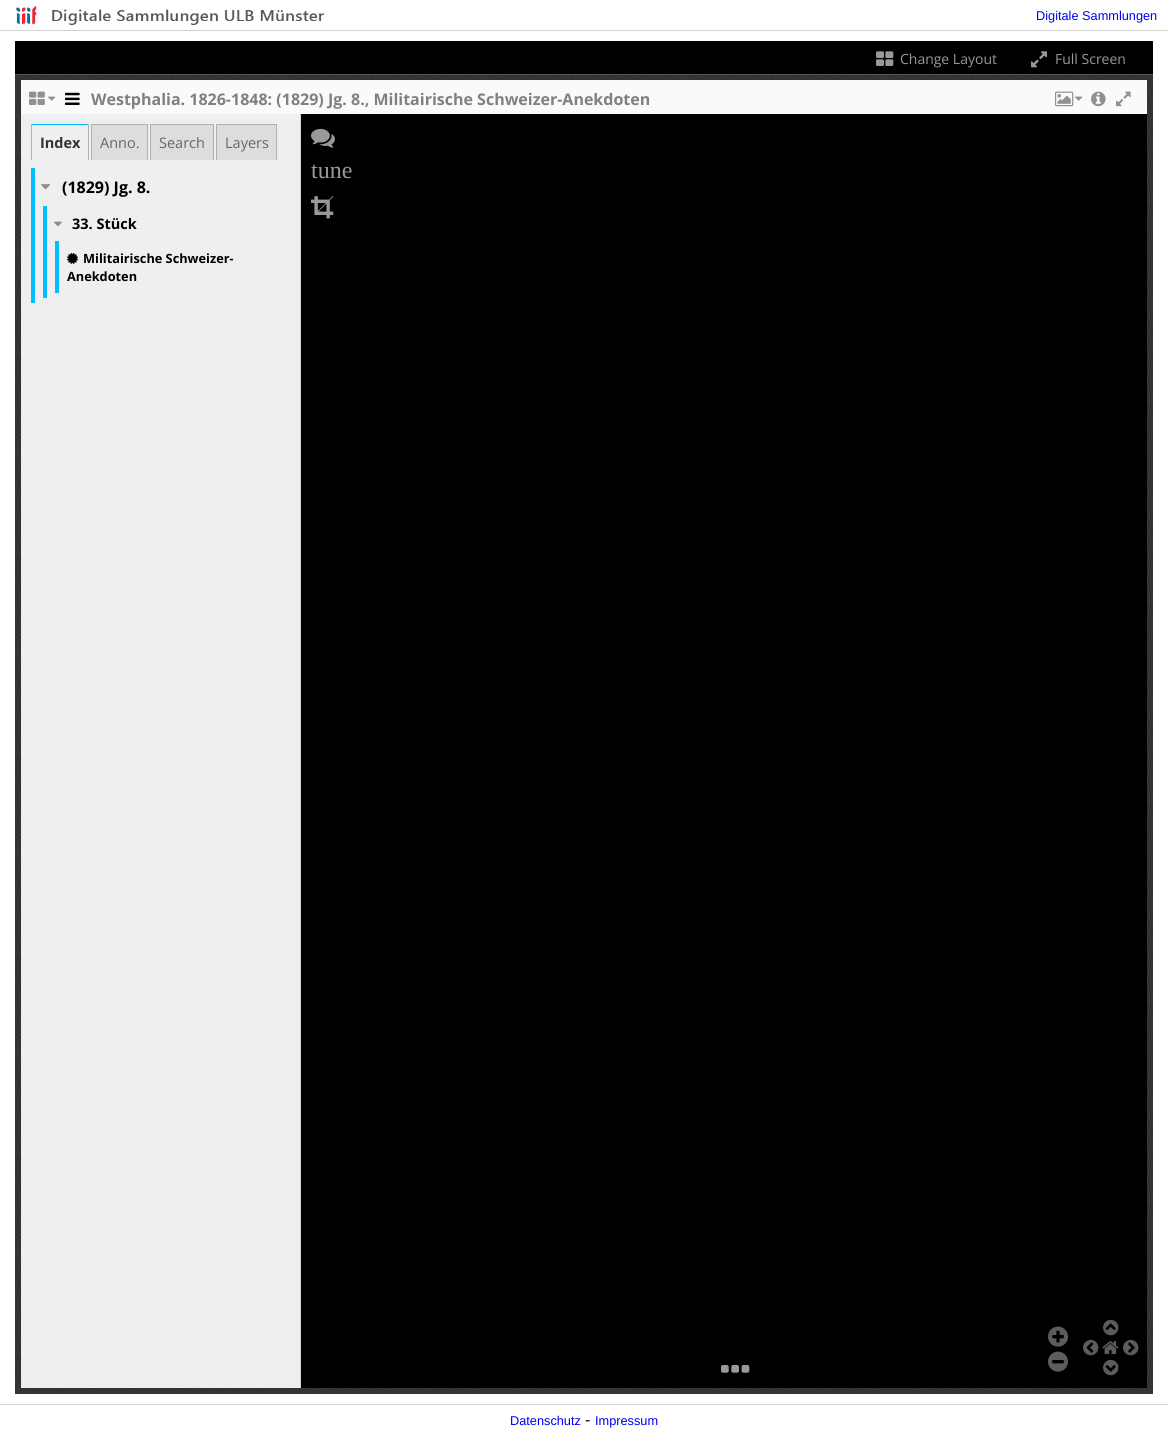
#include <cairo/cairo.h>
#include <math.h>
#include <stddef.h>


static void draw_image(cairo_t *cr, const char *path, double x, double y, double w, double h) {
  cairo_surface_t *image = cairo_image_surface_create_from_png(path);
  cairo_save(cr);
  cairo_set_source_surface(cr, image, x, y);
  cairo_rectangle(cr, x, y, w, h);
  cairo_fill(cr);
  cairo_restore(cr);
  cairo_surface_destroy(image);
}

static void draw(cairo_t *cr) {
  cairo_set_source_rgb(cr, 1, 1, 1);
  cairo_paint(cr);
  cairo_set_source_rgb(cr, 211 / 255.0, 211 / 255.0, 211 / 255.0);
  cairo_rectangle(cr, 0, 30, 1168, 1);
  cairo_fill(cr);
  draw_image(cr, "images/1.png", 16, 6, 309, 19);
  draw_image(cr, "images/2.png", 15, 75, 1138, 1319);
  cairo_set_source_rgb(cr, 0, 0, 0);
  cairo_rectangle(cr, 15, 41, 1138, 33);
  cairo_fill(cr);
  cairo_set_source_rgb(cr, 85 / 255.0, 85 / 255.0, 85 / 255.0);
  cairo_rectangle(cr, 15, 74, 1138, 1);
  cairo_fill(cr);
  draw_image(cr, "images/3.png", 876, 51, 18, 15);
  draw_image(cr, "images/4.png", 1031, 51, 16, 17);
  cairo_set_source_rgb(cr, 250 / 255.0, 250 / 255.0, 250 / 255.0);
  cairo_rectangle(cr, 21, 80, 1126, 34);
  cairo_fill(cr);
  draw_image(cr, "images/5.png", 29, 91, 16, 14);
  draw_image(cr, "images/6.png", 48, 96, 8, 5);
  draw_image(cr, "images/7.png", 65, 92, 15, 13);
  draw_image(cr, "images/8.png", 1055, 91, 19, 16);
  draw_image(cr, "images/6.png", 1075, 96, 8, 5);
  draw_image(cr, "images/9.png", 1091, 91, 15, 16);
  draw_image(cr, "images/10.png", 1116, 91, 15, 16);
  cairo_set_source_rgb(cr, 239 / 255.0, 239 / 255.0, 239 / 255.0);
  cairo_rectangle(cr, 21, 114, 279, 1274);
  cairo_fill(cr);
  cairo_set_source_rgb(cr, 211 / 255.0, 211 / 255.0, 211 / 255.0);
  cairo_rectangle(cr, 300, 114, 1, 1274);
  cairo_fill(cr);
  cairo_set_source_rgb(cr, 0, 191 / 255.0, 1);
  cairo_rectangle(cr, 31, 124, 58, 1);
  cairo_fill(cr);
  cairo_set_source_rgb(cr, 177 / 255.0, 177 / 255.0, 177 / 255.0);
  cairo_rectangle(cr, 88, 124, 1, 36);
  cairo_fill(cr);
  cairo_rectangle(cr, 31, 124, 1, 36);
  cairo_fill(cr);
  cairo_set_source_rgb(cr, 221 / 255.0, 221 / 255.0, 221 / 255.0);
  cairo_rectangle(cr, 92, 125, 55, 35);
  cairo_fill(cr);
  cairo_set_source_rgb(cr, 177 / 255.0, 177 / 255.0, 177 / 255.0);
  cairo_rectangle(cr, 91, 124, 57, 1);
  cairo_fill(cr);
  cairo_rectangle(cr, 147, 124, 1, 36);
  cairo_fill(cr);
  cairo_rectangle(cr, 91, 124, 1, 36);
  cairo_fill(cr);
  cairo_set_source_rgb(cr, 221 / 255.0, 221 / 255.0, 221 / 255.0);
  cairo_rectangle(cr, 151, 125, 62, 35);
  cairo_fill(cr);
  cairo_set_source_rgb(cr, 177 / 255.0, 177 / 255.0, 177 / 255.0);
  cairo_rectangle(cr, 150, 124, 64, 1);
  cairo_fill(cr);
  cairo_rectangle(cr, 213, 124, 1, 36);
  cairo_fill(cr);
  cairo_rectangle(cr, 150, 124, 1, 36);
  cairo_fill(cr);
  cairo_set_source_rgb(cr, 221 / 255.0, 221 / 255.0, 221 / 255.0);
  cairo_rectangle(cr, 217, 125, 59, 35);
  cairo_fill(cr);
  cairo_set_source_rgb(cr, 177 / 255.0, 177 / 255.0, 177 / 255.0);
  cairo_rectangle(cr, 216, 124, 61, 1);
  cairo_fill(cr);
  cairo_rectangle(cr, 276, 124, 1, 36);
  cairo_fill(cr);
  cairo_rectangle(cr, 216, 124, 1, 36);
  cairo_fill(cr);
  cairo_set_source_rgb(cr, 0, 191 / 255.0, 1);
  cairo_rectangle(cr, 31, 168, 4, 135);
  cairo_fill(cr);
  draw_image(cr, "images/11.png", 41, 184, 9, 6);
  cairo_rectangle(cr, 43, 206, 4, 92);
  cairo_fill(cr);
  draw_image(cr, "images/12.png", 53, 221, 9, 6);
  cairo_rectangle(cr, 55, 241, 4, 52);
  cairo_fill(cr);
  draw_image(cr, "images/13.png", 67, 253, 11, 11);
  cairo_set_source_rgb(cr, 0, 0, 0);
  cairo_rectangle(cr, 301, 114, 846, 1274);
  cairo_fill(cr);
  draw_image(cr, "images/14.png", 311, 128, 24, 20);
  draw_image(cr, "images/15.png", 311, 196, 23, 23);
  draw_image(cr, "images/16.png", 721, 1365, 29, 8);
  draw_image(cr, "images/17.png", 1048, 1326, 20, 21);
  draw_image(cr, "images/18.png", 1083, 1339, 16, 17);
  draw_image(cr, "images/19.png", 1103, 1319, 16, 17);
  draw_image(cr, "images/20.png", 1123, 1339, 16, 17);
  draw_image(cr, "images/21.png", 1102, 1341, 17, 13);
  draw_image(cr, "images/22.png", 1048, 1351, 20, 21);
  draw_image(cr, "images/23.png", 1103, 1359, 16, 17);
  cairo_set_source_rgb(cr, 211 / 255.0, 211 / 255.0, 211 / 255.0);
  cairo_rectangle(cr, 0, 1404, 1168, 1);
  cairo_fill(cr);
  cairo_select_font_face(cr, "Liberation Sans", CAIRO_FONT_SLANT_NORMAL, CAIRO_FONT_WEIGHT_NORMAL);
  cairo_set_font_size(cr, 12.75);
  cairo_set_source_rgb(cr, 0, 0, 238 / 255.0);
  cairo_move_to(cr, 1036, 20);
  cairo_show_text(cr, "Digitale Sammlungen");
  cairo_select_font_face(cr, "Open Sans", CAIRO_FONT_SLANT_NORMAL, CAIRO_FONT_WEIGHT_NORMAL);
  cairo_set_font_size(cr, 14);
  cairo_set_source_rgb(cr, 153 / 255.0, 153 / 255.0, 153 / 255.0);
  cairo_move_to(cr, 900, 64);
  cairo_show_text(cr, "Change Layout");
  cairo_move_to(cr, 1055, 64);
  cairo_show_text(cr, "Full Screen");
  cairo_select_font_face(cr, "Open Sans", CAIRO_FONT_SLANT_NORMAL, CAIRO_FONT_WEIGHT_BOLD);
  cairo_set_font_size(cr, 16);
  cairo_set_source_rgb(cr, 128 / 255.0, 128 / 255.0, 128 / 255.0);
  cairo_move_to(cr, 91, 105);
  cairo_show_text(cr, "Westphalia. 1826-1848: (1829) Jg. 8., Militairische Schweizer-Anekdoten");
  cairo_set_font_size(cr, 14.5);
  cairo_set_source_rgb(cr, 51 / 255.0, 51 / 255.0, 51 / 255.0);
  cairo_move_to(cr, 40, 148);
  cairo_show_text(cr, "Index");
  cairo_select_font_face(cr, "Open Sans", CAIRO_FONT_SLANT_NORMAL, CAIRO_FONT_WEIGHT_NORMAL);
  cairo_set_source_rgb(cr, 102 / 255.0, 102 / 255.0, 102 / 255.0);
  cairo_move_to(cr, 100, 148);
  cairo_show_text(cr, "Anno.");
  cairo_move_to(cr, 159, 148);
  cairo_show_text(cr, "Search");
  cairo_move_to(cr, 225, 148);
  cairo_show_text(cr, "Layers");
  cairo_select_font_face(cr, "Open Sans", CAIRO_FONT_SLANT_NORMAL, CAIRO_FONT_WEIGHT_BOLD);
  cairo_set_font_size(cr, 16);
  cairo_set_source_rgb(cr, 0, 0, 0);
  cairo_move_to(cr, 62, 193);
  cairo_show_text(cr, "(1829) Jg. 8.");
  cairo_set_font_size(cr, 14.5);
  cairo_move_to(cr, 72, 229);
  cairo_show_text(cr, "33. Stück");
  cairo_set_font_size(cr, 12.75);
  cairo_move_to(cr, 83, 263);
  cairo_show_text(cr, "Militairische Schweizer-");
  cairo_move_to(cr, 67, 281);
  cairo_show_text(cr, "Anekdoten");
  cairo_select_font_face(cr, "Liberation Serif", CAIRO_FONT_SLANT_NORMAL, CAIRO_FONT_WEIGHT_NORMAL);
  cairo_set_font_size(cr, 24);
  cairo_set_source_rgb(cr, 153 / 255.0, 153 / 255.0, 153 / 255.0);
  cairo_move_to(cr, 311, 178);
  cairo_show_text(cr, "tune");
  cairo_select_font_face(cr, "Liberation Sans", CAIRO_FONT_SLANT_NORMAL, CAIRO_FONT_WEIGHT_NORMAL);
  cairo_set_font_size(cr, 12.75);
  cairo_set_source_rgb(cr, 0, 0, 238 / 255.0);
  cairo_move_to(cr, 510, 1425);
  cairo_show_text(cr, "Datenschutz");
  cairo_set_font_size(cr, 16);
  cairo_set_source_rgb(cr, 0, 0, 0);
  cairo_move_to(cr, 585, 1425);
  cairo_show_text(cr, "-");
  cairo_set_font_size(cr, 12.75);
  cairo_set_source_rgb(cr, 0, 0, 238 / 255.0);
  cairo_move_to(cr, 595, 1425);
  cairo_show_text(cr, "Impressum");
}

int main(void) {
  cairo_surface_t *surface = cairo_image_surface_create(CAIRO_FORMAT_RGB24, 1168, 1435);
  cairo_t *cr = cairo_create(surface);
  cairo_font_options_t *options = cairo_font_options_create();
  cairo_font_options_set_hint_metrics(options, CAIRO_HINT_METRICS_OFF);
  cairo_font_options_set_hint_style(options, CAIRO_HINT_STYLE_NONE);
  cairo_set_font_options(cr, options);
  cairo_set_miter_limit(cr, 4);
  draw(cr);
  cairo_surface_write_to_png(surface, "out.png");
  cairo_font_options_destroy(options);
  cairo_destroy(cr);
  cairo_surface_destroy(surface);
  return 0;
}
